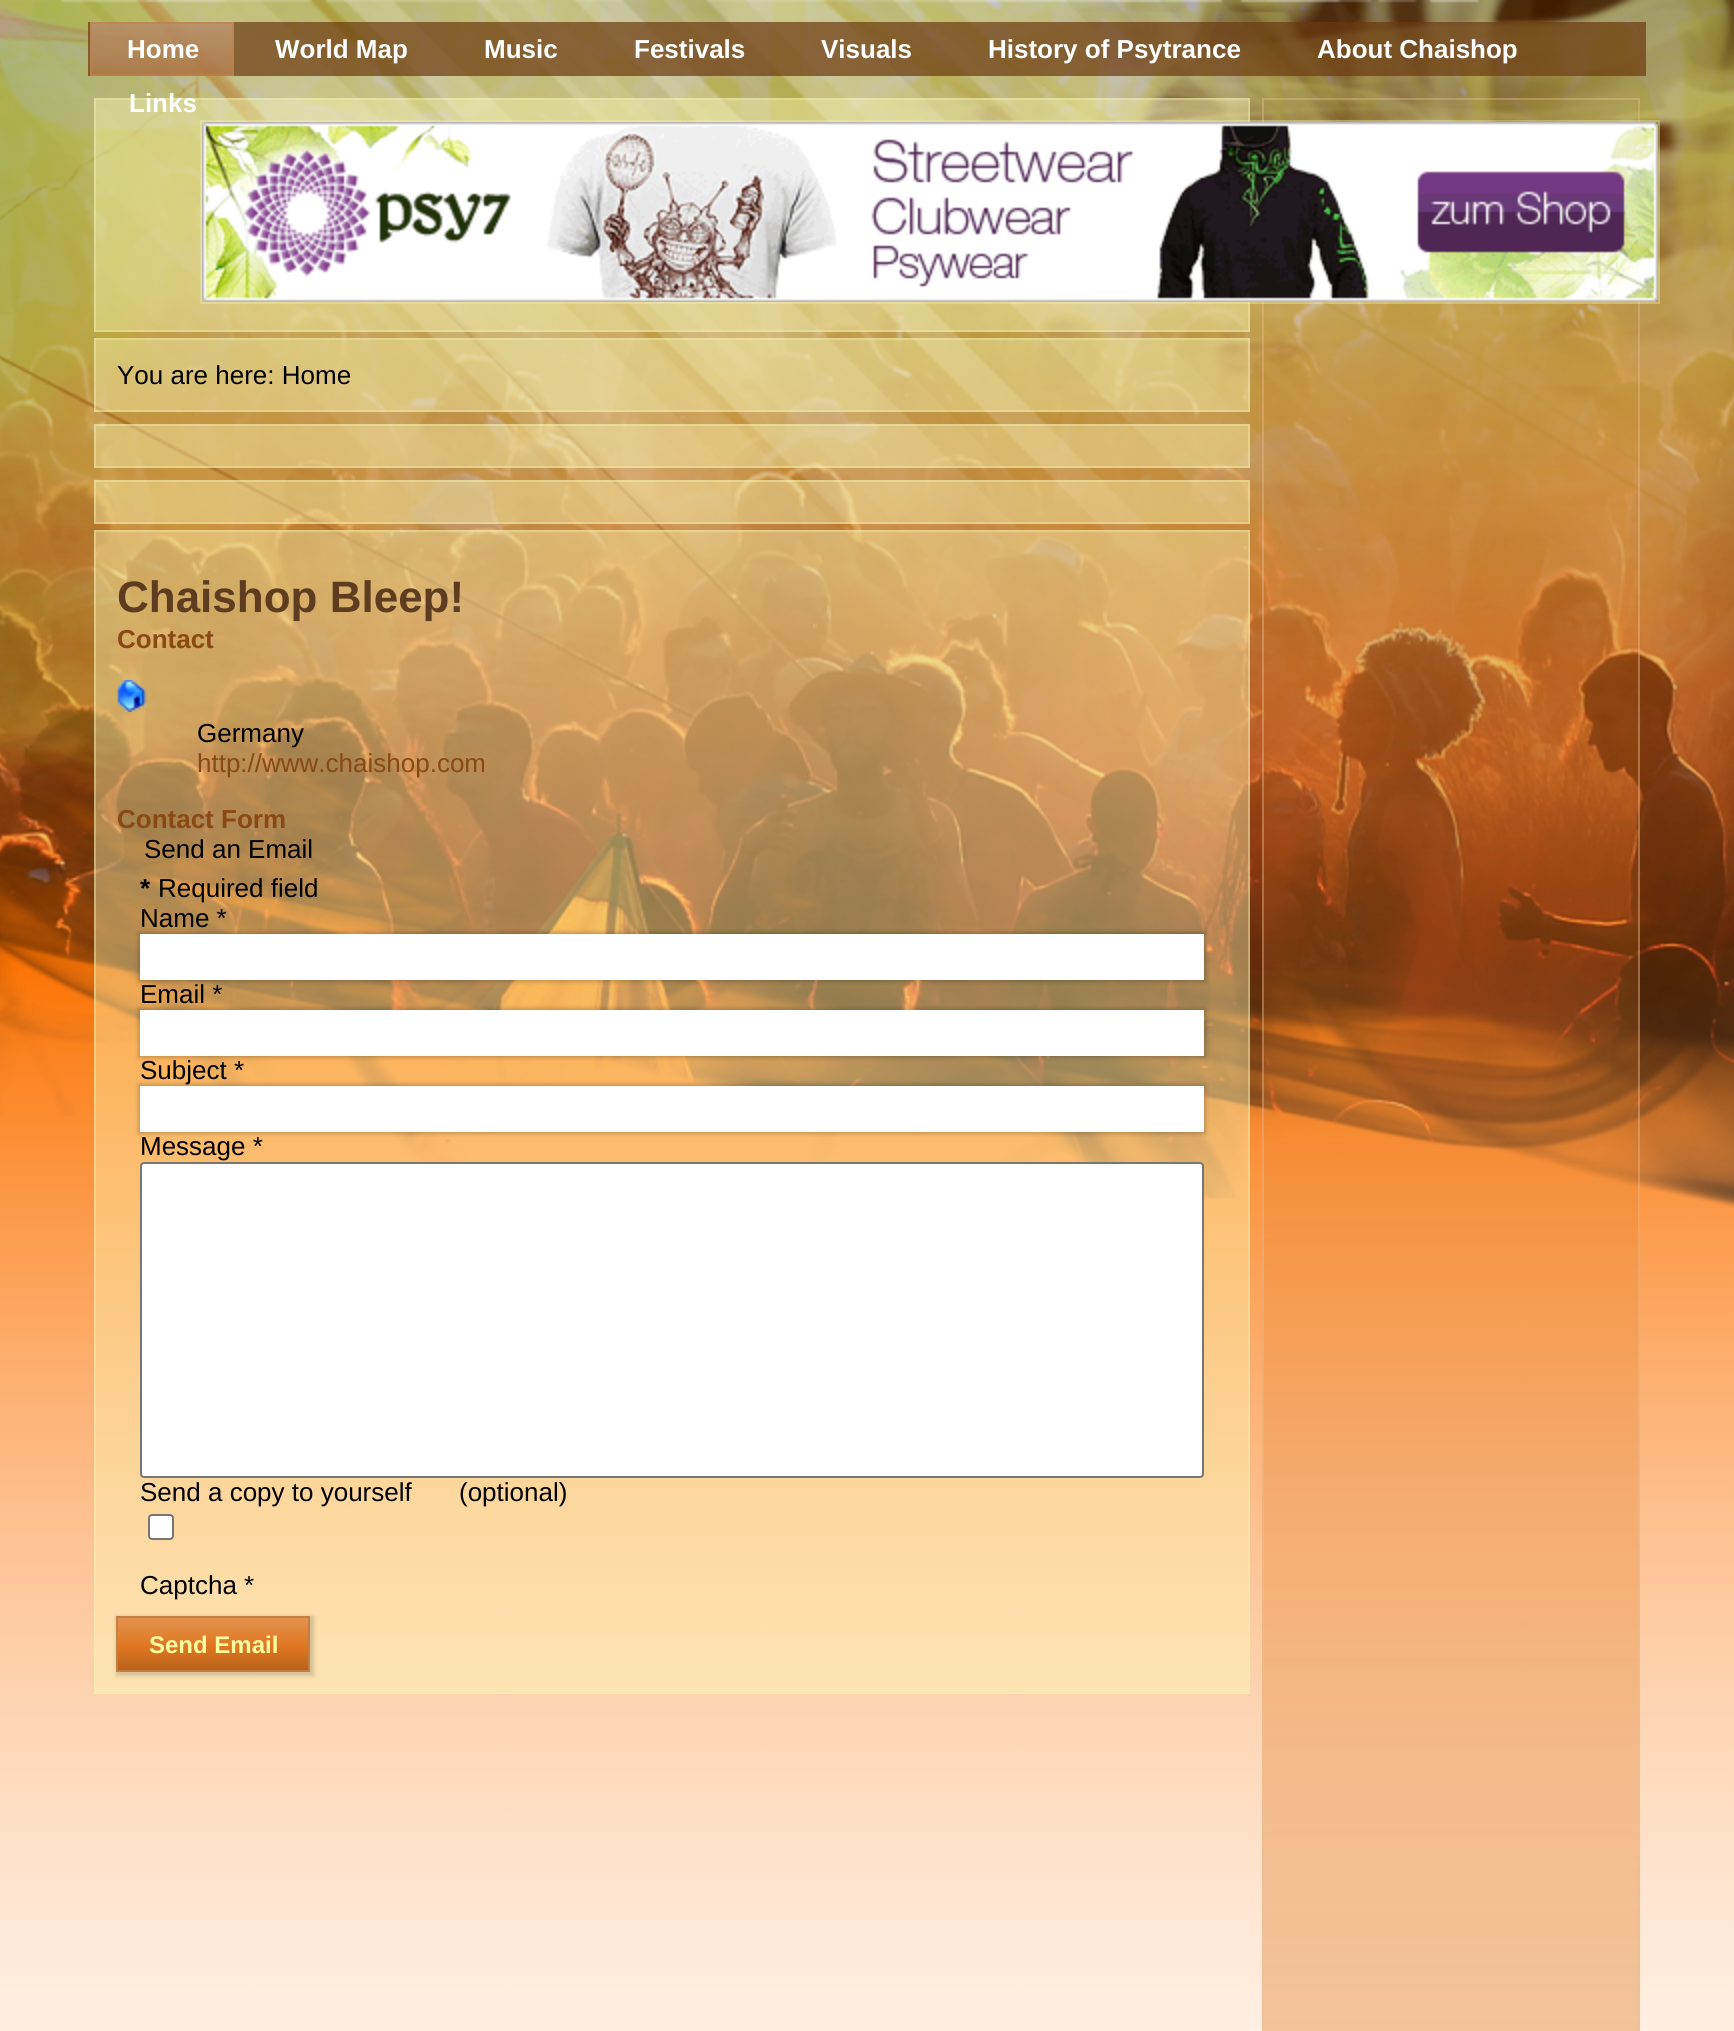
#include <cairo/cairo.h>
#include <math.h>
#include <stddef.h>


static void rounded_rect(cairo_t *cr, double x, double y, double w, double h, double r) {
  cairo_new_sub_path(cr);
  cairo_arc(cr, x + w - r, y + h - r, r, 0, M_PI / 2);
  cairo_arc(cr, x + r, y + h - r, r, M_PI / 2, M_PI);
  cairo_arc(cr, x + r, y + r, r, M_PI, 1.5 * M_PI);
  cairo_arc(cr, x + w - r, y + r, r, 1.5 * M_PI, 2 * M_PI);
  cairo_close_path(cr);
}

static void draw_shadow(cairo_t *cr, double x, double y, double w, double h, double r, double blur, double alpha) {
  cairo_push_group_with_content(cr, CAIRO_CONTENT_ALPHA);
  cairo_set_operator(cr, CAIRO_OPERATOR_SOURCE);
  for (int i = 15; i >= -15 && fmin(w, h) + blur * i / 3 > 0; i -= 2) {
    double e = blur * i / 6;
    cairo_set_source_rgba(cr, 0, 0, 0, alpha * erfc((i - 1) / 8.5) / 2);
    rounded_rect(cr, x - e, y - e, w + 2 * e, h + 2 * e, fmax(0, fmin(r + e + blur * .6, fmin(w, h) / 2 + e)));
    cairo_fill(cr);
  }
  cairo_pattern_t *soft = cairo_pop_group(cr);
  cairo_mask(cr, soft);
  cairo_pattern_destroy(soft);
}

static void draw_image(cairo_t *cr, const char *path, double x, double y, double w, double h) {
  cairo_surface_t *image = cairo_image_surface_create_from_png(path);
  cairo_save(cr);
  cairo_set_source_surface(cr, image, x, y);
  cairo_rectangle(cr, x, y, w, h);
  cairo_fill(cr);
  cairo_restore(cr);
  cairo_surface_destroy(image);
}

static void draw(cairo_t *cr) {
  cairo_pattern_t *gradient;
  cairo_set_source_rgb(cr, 1, 1, 1);
  cairo_paint(cr);
  draw_image(cr, "images/1.png", 0, 0, 1734, 2031);
  cairo_set_source_rgba(cr, 108 / 255.0, 57 / 255.0, 16 / 255.0, 0.7);
  cairo_rectangle(cr, 88, 22, 1558, 54);
  cairo_fill(cr);
  gradient = cairo_pattern_create_linear(162, 22, 162, 76);
  cairo_pattern_add_color_stop_rgba(gradient, 0, 219 / 255.0, 181 / 255.0, 148 / 255.0, 0.6);
  cairo_pattern_add_color_stop_rgba(gradient, 1, 200 / 255.0, 142 / 255.0, 91 / 255.0, 0.6);
  cairo_set_source(cr, gradient);
  cairo_pattern_destroy(gradient);
  cairo_rectangle(cr, 90, 22, 144, 54);
  cairo_fill(cr);
  cairo_rectangle(cr, 91, 23, 142, 52);
  cairo_set_source_rgba(cr, 194 / 255.0, 128 / 255.0, 70 / 255.0, 0.6);
  cairo_stroke(cr);
  cairo_set_source_rgba(cr, 254 / 255.0, 252 / 255.0, 185 / 255.0, 0.4);
  cairo_rectangle(cr, 94, 98, 1156, 234);
  cairo_fill(cr);
  cairo_rectangle(cr, 95, 99, 1154, 232);
  cairo_set_source_rgba(cr, 243 / 255.0, 241 / 255.0, 178 / 255.0, 0.4);
  cairo_stroke(cr);
  cairo_rectangle(cr, 1263, 99, 376, 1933);
  cairo_set_source_rgba(cr, 239 / 255.0, 189 / 255.0, 148 / 255.0, 0.4);
  cairo_stroke(cr);
  cairo_rectangle(cr, 201, 121, 1458, 182);
  cairo_set_source_rgba(cr, 243 / 255.0, 241 / 255.0, 178 / 255.0, 0.4);
  cairo_stroke(cr);
  draw_image(cr, "images/2.png", 202, 122, 1456, 180);
  cairo_set_source_rgba(cr, 254 / 255.0, 252 / 255.0, 185 / 255.0, 0.4);
  cairo_rectangle(cr, 94, 338, 1156, 74);
  cairo_fill(cr);
  cairo_rectangle(cr, 95, 339, 1154, 72);
  cairo_set_source_rgba(cr, 243 / 255.0, 241 / 255.0, 178 / 255.0, 0.4);
  cairo_stroke(cr);
  cairo_set_source_rgba(cr, 254 / 255.0, 252 / 255.0, 185 / 255.0, 0.4);
  cairo_rectangle(cr, 94, 424, 1156, 44);
  cairo_fill(cr);
  cairo_rectangle(cr, 95, 425, 1154, 42);
  cairo_set_source_rgba(cr, 243 / 255.0, 241 / 255.0, 178 / 255.0, 0.4);
  cairo_stroke(cr);
  cairo_set_source_rgba(cr, 254 / 255.0, 252 / 255.0, 185 / 255.0, 0.4);
  cairo_rectangle(cr, 94, 480, 1156, 44);
  cairo_fill(cr);
  cairo_rectangle(cr, 95, 481, 1154, 42);
  cairo_set_source_rgba(cr, 243 / 255.0, 241 / 255.0, 178 / 255.0, 0.4);
  cairo_stroke(cr);
  cairo_set_source_rgba(cr, 254 / 255.0, 252 / 255.0, 185 / 255.0, 0.4);
  cairo_rectangle(cr, 94, 530, 1156, 1164);
  cairo_fill(cr);
  cairo_rectangle(cr, 95, 531, 1154, 1162);
  cairo_set_source_rgba(cr, 243 / 255.0, 241 / 255.0, 178 / 255.0, 0.4);
  cairo_stroke(cr);
  draw_image(cr, "images/3.png", 117, 680, 30, 32);
  cairo_set_source_rgb(cr, 0, 0, 0);
  draw_shadow(cr, 138, 932, 1068, 50, 0, 2, 0.2);
  cairo_set_source_rgb(cr, 1, 1, 1);
  cairo_rectangle(cr, 140, 934, 1064, 46);
  cairo_fill(cr);
  cairo_set_source_rgb(cr, 0, 0, 0);
  draw_shadow(cr, 138, 1008, 1068, 50, 0, 2, 0.2);
  cairo_set_source_rgb(cr, 1, 1, 1);
  cairo_rectangle(cr, 140, 1010, 1064, 46);
  cairo_fill(cr);
  cairo_set_source_rgb(cr, 0, 0, 0);
  draw_shadow(cr, 138, 1084, 1068, 50, 0, 2, 0.2);
  cairo_set_source_rgb(cr, 1, 1, 1);
  cairo_rectangle(cr, 140, 1086, 1064, 46);
  cairo_fill(cr);
  rounded_rect(cr, 141, 1163, 1062, 314, 3);
  cairo_fill_preserve(cr);
  cairo_set_source_rgb(cr, 118 / 255.0, 118 / 255.0, 118 / 255.0);
  cairo_stroke(cr);
  cairo_set_source_rgb(cr, 1, 1, 1);
  rounded_rect(cr, 149, 1515, 24, 24, 3);
  cairo_fill_preserve(cr);
  cairo_set_source_rgb(cr, 118 / 255.0, 118 / 255.0, 118 / 255.0);
  cairo_stroke(cr);
  cairo_set_source_rgb(cr, 0, 0, 0);
  draw_shadow(cr, 116, 1616, 198, 60, 0, 2, 0.15);
  gradient = cairo_pattern_create_linear(213, 1616, 213, 1672);
  cairo_pattern_add_color_stop_rgba(gradient, 0, 229 / 255.0, 148 / 255.0, 82 / 255.0, 1);
  cairo_pattern_add_color_stop_rgba(gradient, 0.55, 222 / 255.0, 118 / 255.0, 33 / 255.0, 1);
  cairo_pattern_add_color_stop_rgba(gradient, 1, 182 / 255.0, 97 / 255.0, 27 / 255.0, 1);
  cairo_set_source(cr, gradient);
  cairo_pattern_destroy(gradient);
  cairo_rectangle(cr, 118, 1618, 190, 52);
  cairo_fill(cr);
  cairo_rectangle(cr, 117, 1617, 192, 54);
  cairo_set_source_rgb(cr, 194 / 255.0, 128 / 255.0, 70 / 255.0);
  cairo_stroke(cr);
  cairo_select_font_face(cr, "Liberation Sans", CAIRO_FONT_SLANT_NORMAL, CAIRO_FONT_WEIGHT_BOLD);
  cairo_set_font_size(cr, 26);
  cairo_set_source_rgb(cr, 1, 1, 1);
  cairo_move_to(cr, 127, 58);
  cairo_show_text(cr, "Home");
  cairo_move_to(cr, 275, 58);
  cairo_show_text(cr, "World Map");
  cairo_move_to(cr, 484, 58);
  cairo_show_text(cr, "Music");
  cairo_move_to(cr, 634, 58);
  cairo_show_text(cr, "Festivals");
  cairo_move_to(cr, 821, 58);
  cairo_show_text(cr, "Visuals");
  cairo_move_to(cr, 988, 58);
  cairo_show_text(cr, "History of Psytrance");
  cairo_move_to(cr, 1317, 58);
  cairo_show_text(cr, "About Chaishop");
  cairo_move_to(cr, 129, 112);
  cairo_show_text(cr, "Links");
  cairo_select_font_face(cr, "Liberation Sans", CAIRO_FONT_SLANT_NORMAL, CAIRO_FONT_WEIGHT_NORMAL);
  cairo_set_source_rgb(cr, 0, 0, 0);
  cairo_move_to(cr, 117, 384);
  cairo_show_text(cr, "You are here: Home");
  cairo_select_font_face(cr, "Liberation Sans", CAIRO_FONT_SLANT_NORMAL, CAIRO_FONT_WEIGHT_BOLD);
  cairo_set_font_size(cr, 44);
  cairo_set_source_rgb(cr, 93 / 255.0, 60 / 255.0, 31 / 255.0);
  cairo_move_to(cr, 117, 612);
  cairo_show_text(cr, "Chaishop Bleep!");
  cairo_set_font_size(cr, 26);
  cairo_set_source_rgb(cr, 137 / 255.0, 73 / 255.0, 20 / 255.0);
  cairo_move_to(cr, 117, 648);
  cairo_show_text(cr, "Contact");
  cairo_select_font_face(cr, "Liberation Sans", CAIRO_FONT_SLANT_NORMAL, CAIRO_FONT_WEIGHT_NORMAL);
  cairo_set_source_rgb(cr, 0, 0, 0);
  cairo_move_to(cr, 197, 742);
  cairo_show_text(cr, "Germany");
  cairo_set_source_rgb(cr, 137 / 255.0, 73 / 255.0, 20 / 255.0);
  cairo_move_to(cr, 197, 772);
  cairo_show_text(cr, "http://www.chaishop.com");
  cairo_select_font_face(cr, "Liberation Sans", CAIRO_FONT_SLANT_NORMAL, CAIRO_FONT_WEIGHT_BOLD);
  cairo_move_to(cr, 117, 828);
  cairo_show_text(cr, "Contact Form");
  cairo_select_font_face(cr, "Liberation Sans", CAIRO_FONT_SLANT_NORMAL, CAIRO_FONT_WEIGHT_NORMAL);
  cairo_set_source_rgb(cr, 0, 0, 0);
  cairo_move_to(cr, 144, 858);
  cairo_show_text(cr, "Send an Email");
  cairo_select_font_face(cr, "Liberation Sans", CAIRO_FONT_SLANT_NORMAL, CAIRO_FONT_WEIGHT_BOLD);
  cairo_move_to(cr, 140, 897);
  cairo_show_text(cr, "*");
  cairo_select_font_face(cr, "Liberation Sans", CAIRO_FONT_SLANT_NORMAL, CAIRO_FONT_WEIGHT_NORMAL);
  cairo_move_to(cr, 158, 897);
  cairo_show_text(cr, "Required field");
  cairo_move_to(cr, 140, 927);
  cairo_show_text(cr, "Name *");
  cairo_move_to(cr, 140, 1003);
  cairo_show_text(cr, "Email *");
  cairo_move_to(cr, 140, 1079);
  cairo_show_text(cr, "Subject *");
  cairo_move_to(cr, 140, 1155);
  cairo_show_text(cr, "Message *");
  cairo_move_to(cr, 140, 1501);
  cairo_show_text(cr, "Send a copy to yourself");
  cairo_move_to(cr, 459, 1501);
  cairo_show_text(cr, "(optional)");
  cairo_move_to(cr, 140, 1594);
  cairo_show_text(cr, "Captcha *");
  cairo_select_font_face(cr, "Liberation Sans", CAIRO_FONT_SLANT_NORMAL, CAIRO_FONT_WEIGHT_BOLD);
  cairo_set_font_size(cr, 24);
  cairo_set_source_rgb(cr, 253 / 255.0, 252 / 255.0, 162 / 255.0);
  cairo_move_to(cr, 149, 1653);
  cairo_show_text(cr, "Send Email");
}

int main(void) {
  cairo_surface_t *surface = cairo_image_surface_create(CAIRO_FORMAT_RGB24, 1734, 2031);
  cairo_t *cr = cairo_create(surface);
  cairo_font_options_t *options = cairo_font_options_create();
  cairo_font_options_set_hint_metrics(options, CAIRO_HINT_METRICS_OFF);
  cairo_font_options_set_hint_style(options, CAIRO_HINT_STYLE_NONE);
  cairo_set_font_options(cr, options);
  cairo_set_miter_limit(cr, 4);
  draw(cr);
  cairo_surface_write_to_png(surface, "out.png");
  cairo_font_options_destroy(options);
  cairo_destroy(cr);
  cairo_surface_destroy(surface);
  return 0;
}
